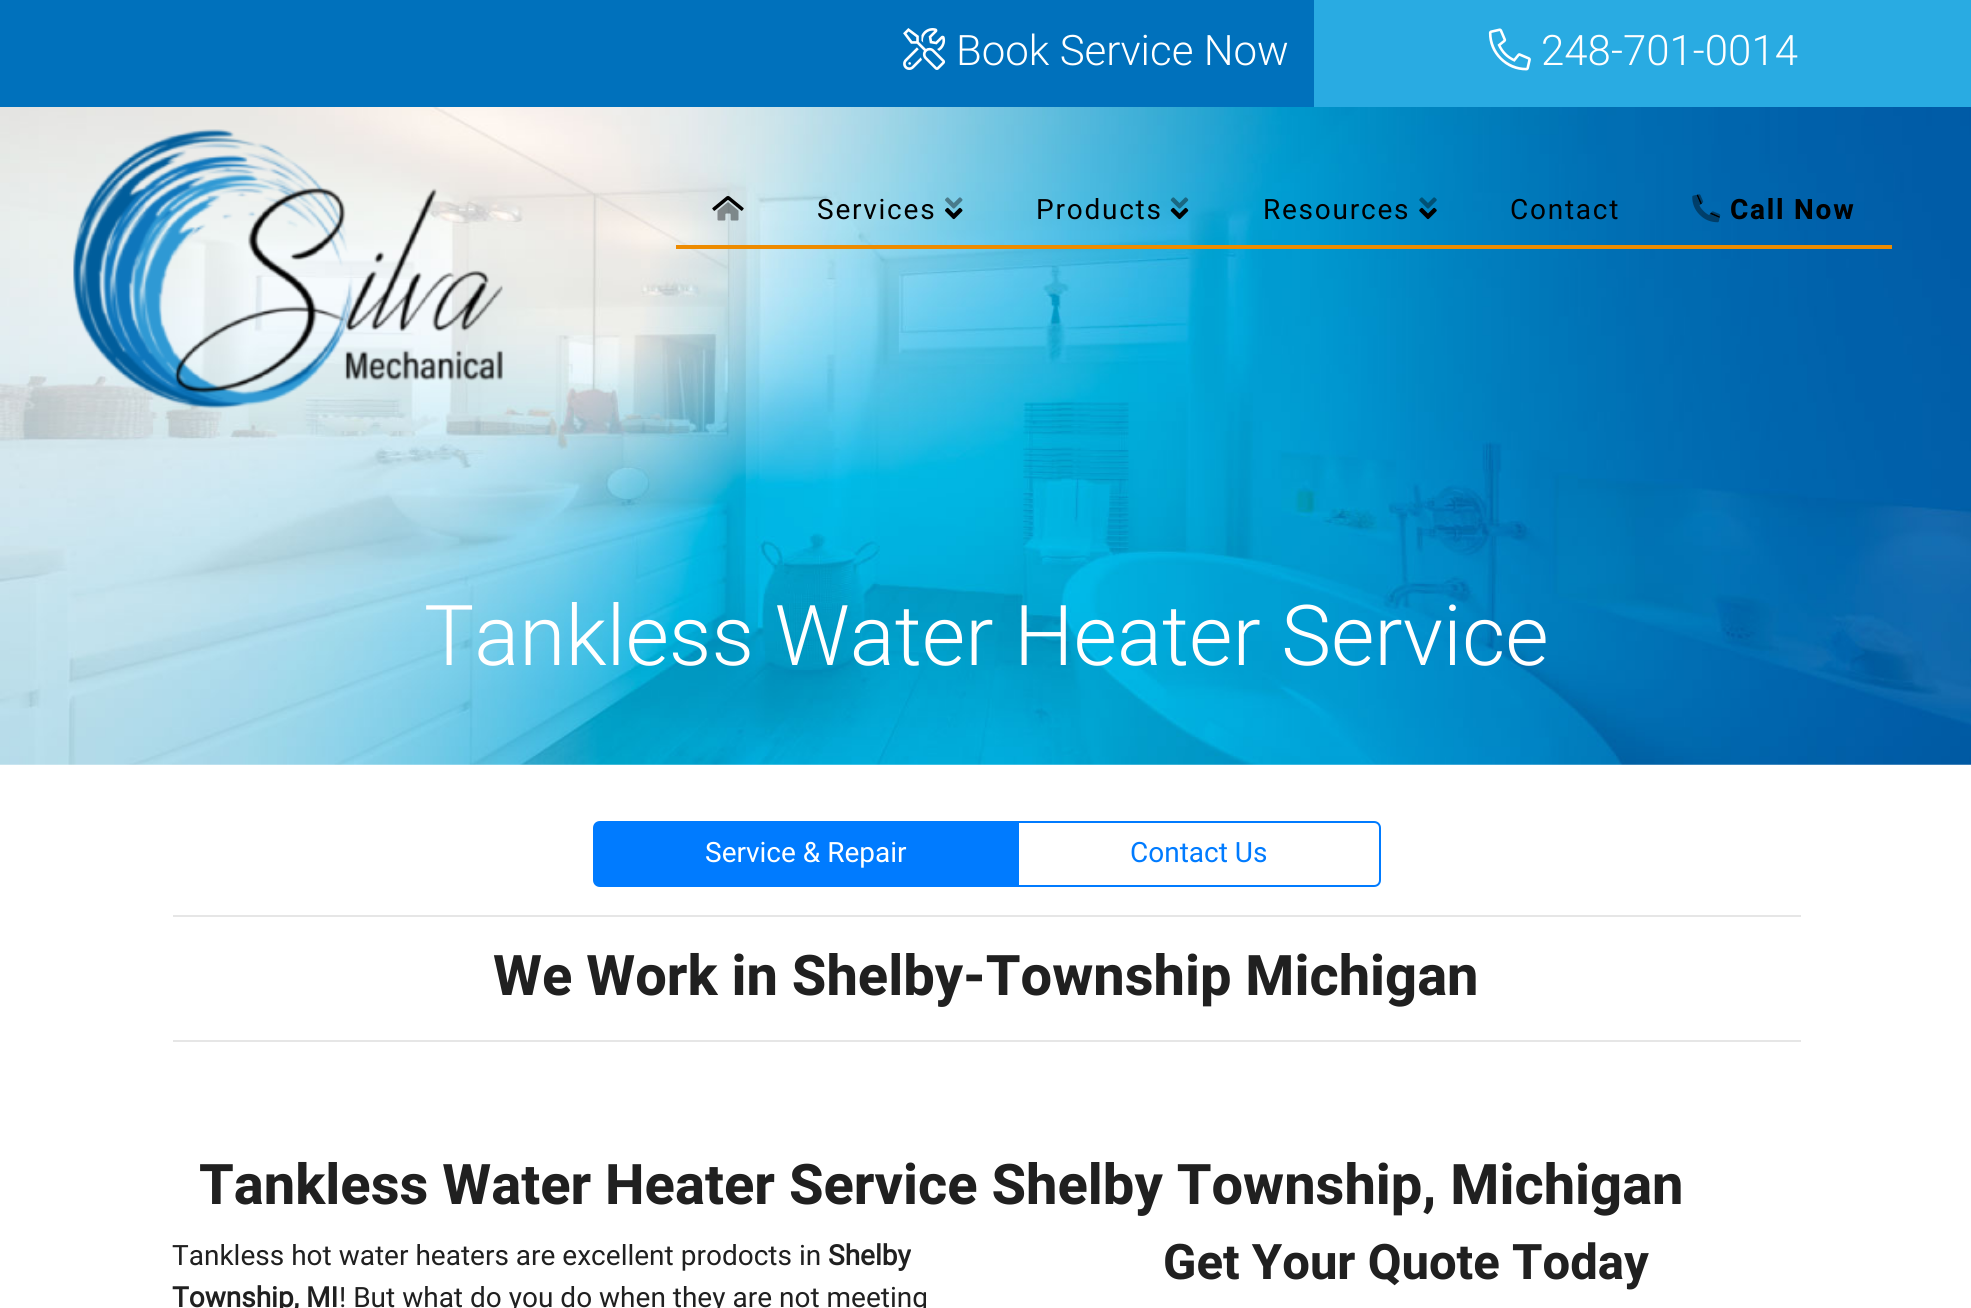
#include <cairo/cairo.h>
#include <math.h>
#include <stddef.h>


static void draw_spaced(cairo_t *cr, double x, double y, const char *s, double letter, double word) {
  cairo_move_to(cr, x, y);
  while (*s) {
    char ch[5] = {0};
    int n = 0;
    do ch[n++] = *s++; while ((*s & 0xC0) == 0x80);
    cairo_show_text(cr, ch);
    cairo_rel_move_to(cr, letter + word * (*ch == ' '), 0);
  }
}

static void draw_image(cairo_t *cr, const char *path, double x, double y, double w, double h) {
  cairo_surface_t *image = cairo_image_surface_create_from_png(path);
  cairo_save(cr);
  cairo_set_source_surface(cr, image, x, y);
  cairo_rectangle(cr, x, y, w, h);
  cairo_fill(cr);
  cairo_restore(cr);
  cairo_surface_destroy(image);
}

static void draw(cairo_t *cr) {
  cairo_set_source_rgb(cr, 1, 1, 1);
  cairo_paint(cr);
  cairo_set_source_rgb(cr, 0, 113 / 255.0, 188 / 255.0);
  cairo_rectangle(cr, 0, 0, 1314, 107);
  cairo_fill(cr);
  draw_image(cr, "images/1.png", 903, 28, 43, 42);
  cairo_set_source_rgb(cr, 41 / 255.0, 171 / 255.0, 226 / 255.0);
  cairo_rectangle(cr, 1314, 0, 657, 107);
  cairo_fill(cr);
  draw_image(cr, "images/2.png", 1488, 28, 43, 43);
  draw_image(cr, "images/13.png", 0, 107, 1971, 658);
  draw_image(cr, "images/3.png", 73, 129, 430, 280);
  cairo_set_source_rgb(cr, 237 / 255.0, 139 / 255.0, 0);
  cairo_rectangle(cr, 676, 245, 551, 4);
  cairo_fill(cr);
  draw_image(cr, "images/4.png", 712, 196, 32, 15);
  draw_image(cr, "images/5.png", 717, 202, 22, 19);
  draw_image(cr, "images/7.png", 945, 207, 18, 13);
  draw_image(cr, "images/6.png", 945, 197, 18, 12);
  draw_image(cr, "images/9.png", 1170, 207, 19, 13);
  draw_image(cr, "images/8.png", 1170, 197, 19, 12);
  draw_image(cr, "images/11.png", 1419, 207, 18, 13);
  draw_image(cr, "images/10.png", 1419, 197, 18, 12);
  cairo_rectangle(cr, 1227, 245, 665, 4);
  cairo_fill(cr);
  cairo_set_source_rgb(cr, 0, 0, 0);
  cairo_new_path(cr);
  cairo_move_to(cr, 1696.5, 195);
  cairo_line_to(cr, 1698, 194.5);
  cairo_line_to(cr, 1702, 203.5);
  cairo_line_to(cr, 1700.5, 204.5);
  cairo_close_path(cr);
  cairo_move_to(cr, 1711, 212.5);
  cairo_line_to(cr, 1720, 216.5);
  cairo_line_to(cr, 1719.5, 218);
  cairo_line_to(cr, 1710, 214);
  cairo_close_path(cr);
  cairo_fill(cr);
  draw_image(cr, "images/12.png", 1692, 194, 29, 29);
  cairo_set_source_rgb(cr, 0, 123 / 255.0, 1);
  cairo_new_path(cr);
  cairo_move_to(cr, 600, 822);
  cairo_line_to(cr, 1018, 822);
  cairo_line_to(cr, 1018, 886);
  cairo_line_to(cr, 600, 886);
  cairo_curve_to(cr, 596.5, 886, 594, 883.5, 594, 880);
  cairo_line_to(cr, 594, 828);
  cairo_curve_to(cr, 594, 824.5, 596.5, 822, 600, 822);
  cairo_close_path(cr);
  cairo_fill_preserve(cr);
  cairo_stroke(cr);
  cairo_new_path(cr);
  cairo_move_to(cr, 1018, 822);
  cairo_line_to(cr, 1374, 822);
  cairo_curve_to(cr, 1377.5, 822, 1380, 824.5, 1380, 828);
  cairo_line_to(cr, 1380, 880);
  cairo_curve_to(cr, 1380, 883.5, 1377.5, 886, 1374, 886);
  cairo_line_to(cr, 1018, 886);
  cairo_close_path(cr);
  cairo_stroke(cr);
  cairo_set_source_rgb(cr, 230 / 255.0, 230 / 255.0, 230 / 255.0);
  cairo_rectangle(cr, 173, 915, 1628, 2);
  cairo_fill(cr);
  cairo_rectangle(cr, 173, 1040, 1628, 2);
  cairo_fill(cr);
  cairo_select_font_face(cr, "Heebo Light", CAIRO_FONT_SLANT_NORMAL, CAIRO_FONT_WEIGHT_NORMAL);
  cairo_set_font_size(cr, 42);
  cairo_set_source_rgb(cr, 1, 1, 1);
  cairo_move_to(cr, 956, 65);
  cairo_show_text(cr, "Book Service Now");
  cairo_move_to(cr, 1541, 65);
  cairo_show_text(cr, "248-701-0014");
  cairo_select_font_face(cr, "Heebo", CAIRO_FONT_SLANT_NORMAL, CAIRO_FONT_WEIGHT_NORMAL);
  cairo_set_font_size(cr, 28);
  cairo_set_source_rgb(cr, 0, 0, 0);
  draw_spaced(cr, 817, 219, "Services", 1.75, 0);
  draw_spaced(cr, 1036, 219, "Products", 1.75, 0);
  draw_spaced(cr, 1263, 219, "Resources", 1.75, 0);
  draw_spaced(cr, 1510, 219, "Contact", 1.75, 0);
  cairo_select_font_face(cr, "Heebo", CAIRO_FONT_SLANT_NORMAL, CAIRO_FONT_WEIGHT_BOLD);
  draw_spaced(cr, 1730, 219, "Call Now", 1.75, 0);
  cairo_select_font_face(cr, "Heebo Light", CAIRO_FONT_SLANT_NORMAL, CAIRO_FONT_WEIGHT_NORMAL);
  cairo_set_font_size(cr, 84);
  cairo_set_source_rgb(cr, 1, 1, 1);
  cairo_move_to(cr, 424, 665);
  cairo_show_text(cr, "Tankless Water Heater Service");
  cairo_select_font_face(cr, "Heebo", CAIRO_FONT_SLANT_NORMAL, CAIRO_FONT_WEIGHT_NORMAL);
  cairo_set_font_size(cr, 28);
  cairo_move_to(cr, 705, 862);
  cairo_show_text(cr, "Service & Repair");
  cairo_set_source_rgb(cr, 0, 123 / 255.0, 1);
  cairo_move_to(cr, 1130, 862);
  cairo_show_text(cr, "Contact Us");
  cairo_select_font_face(cr, "Heebo", CAIRO_FONT_SLANT_NORMAL, CAIRO_FONT_WEIGHT_BOLD);
  cairo_set_font_size(cr, 56);
  cairo_set_source_rgb(cr, 32 / 255.0, 32 / 255.0, 32 / 255.0);
  cairo_move_to(cr, 493, 995);
  cairo_show_text(cr, "We Work in Shelby-Township Michigan");
  cairo_move_to(cr, 199, 1204);
  cairo_show_text(cr, "Tankless Water Heater Service Shelby Township, Michigan");
  cairo_select_font_face(cr, "Heebo", CAIRO_FONT_SLANT_NORMAL, CAIRO_FONT_WEIGHT_NORMAL);
  cairo_set_font_size(cr, 28);
  cairo_move_to(cr, 172, 1265);
  cairo_show_text(cr, "Tankless hot water heaters are excellent prodocts in");
  cairo_select_font_face(cr, "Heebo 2", CAIRO_FONT_SLANT_NORMAL, CAIRO_FONT_WEIGHT_BOLD);
  cairo_move_to(cr, 828, 1265);
  cairo_show_text(cr, "Shelby");
  cairo_move_to(cr, 172, 1307);
  cairo_show_text(cr, "Township, MI");
  cairo_select_font_face(cr, "Heebo", CAIRO_FONT_SLANT_NORMAL, CAIRO_FONT_WEIGHT_NORMAL);
  cairo_move_to(cr, 339, 1307);
  cairo_show_text(cr, "! But what do you do when they are not meeting");
  cairo_select_font_face(cr, "Heebo", CAIRO_FONT_SLANT_NORMAL, CAIRO_FONT_WEIGHT_BOLD);
  cairo_set_font_size(cr, 49);
  cairo_move_to(cr, 1163, 1279);
  cairo_show_text(cr, "Get Your Quote Today");
}

int main(void) {
  cairo_surface_t *surface = cairo_image_surface_create(CAIRO_FORMAT_RGB24, 1971, 1308);
  cairo_t *cr = cairo_create(surface);
  cairo_font_options_t *options = cairo_font_options_create();
  cairo_font_options_set_hint_metrics(options, CAIRO_HINT_METRICS_OFF);
  cairo_font_options_set_hint_style(options, CAIRO_HINT_STYLE_NONE);
  cairo_set_font_options(cr, options);
  cairo_set_miter_limit(cr, 4);
  draw(cr);
  cairo_surface_write_to_png(surface, "out.png");
  cairo_font_options_destroy(options);
  cairo_destroy(cr);
  cairo_surface_destroy(surface);
  return 0;
}
